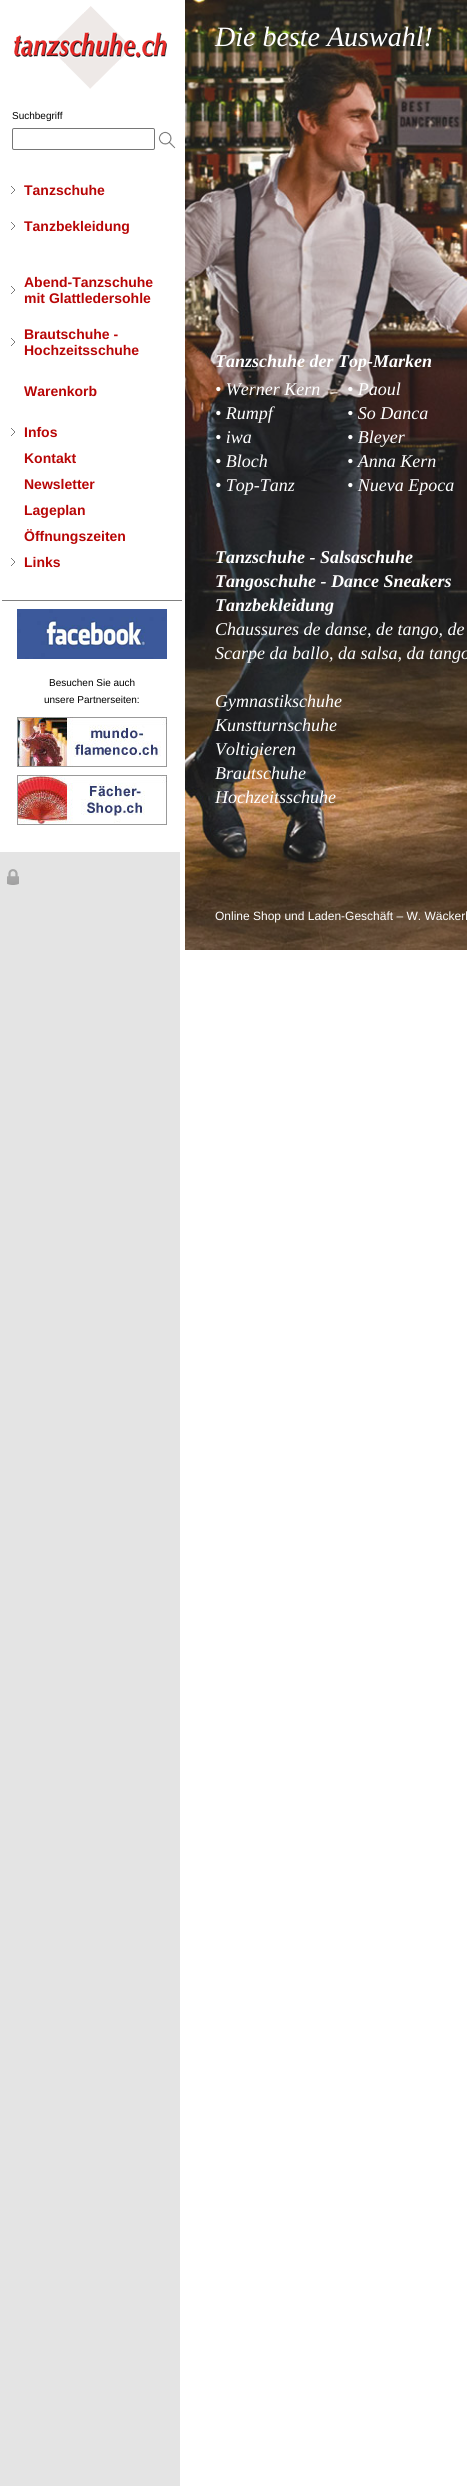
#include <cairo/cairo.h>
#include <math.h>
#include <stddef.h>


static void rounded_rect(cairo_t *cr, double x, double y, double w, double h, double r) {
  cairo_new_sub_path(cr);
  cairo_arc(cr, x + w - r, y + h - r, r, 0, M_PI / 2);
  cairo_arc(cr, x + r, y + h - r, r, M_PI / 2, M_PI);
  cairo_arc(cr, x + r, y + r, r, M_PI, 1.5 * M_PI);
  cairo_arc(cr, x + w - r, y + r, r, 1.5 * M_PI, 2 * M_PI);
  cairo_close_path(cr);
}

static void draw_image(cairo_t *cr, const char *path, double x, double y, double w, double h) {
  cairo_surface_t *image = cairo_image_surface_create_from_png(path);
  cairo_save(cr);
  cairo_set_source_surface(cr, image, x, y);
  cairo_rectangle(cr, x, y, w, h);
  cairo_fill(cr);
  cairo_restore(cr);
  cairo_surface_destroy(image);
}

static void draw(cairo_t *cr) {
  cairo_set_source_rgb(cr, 1, 1, 1);
  cairo_paint(cr);
  cairo_set_source_rgb(cr, 228 / 255.0, 228 / 255.0, 228 / 255.0);
  cairo_rectangle(cr, 0, 852, 180, 1634);
  cairo_fill(cr);
  draw_image(cr, "images/1.png", 14, 6, 153, 83);
  rounded_rect(cr, 12.5, 128.5, 142, 21, 1.5);
  cairo_set_source_rgb(cr, 118 / 255.0, 118 / 255.0, 118 / 255.0);
  cairo_set_line_width(cr, 1);
  cairo_stroke(cr);
  draw_image(cr, "images/2.png", 158, 131, 18, 18);
  cairo_set_source_rgb(cr, 121 / 255.0, 121 / 255.0, 121 / 255.0);
  cairo_rectangle(cr, 11, 186, 1, 1);
  cairo_fill(cr);
  cairo_rectangle(cr, 11, 193, 1, 1);
  cairo_fill(cr);
  cairo_rectangle(cr, 12, 187, 1, 1);
  cairo_fill(cr);
  cairo_rectangle(cr, 12, 192, 1, 1);
  cairo_fill(cr);
  cairo_rectangle(cr, 13, 188, 1, 1);
  cairo_fill(cr);
  cairo_rectangle(cr, 13, 191, 1, 1);
  cairo_fill(cr);
  cairo_rectangle(cr, 14, 189, 1, 2);
  cairo_fill(cr);
  cairo_rectangle(cr, 11, 222, 1, 1);
  cairo_fill(cr);
  cairo_rectangle(cr, 11, 229, 1, 1);
  cairo_fill(cr);
  cairo_rectangle(cr, 12, 223, 1, 1);
  cairo_fill(cr);
  cairo_rectangle(cr, 12, 228, 1, 1);
  cairo_fill(cr);
  cairo_rectangle(cr, 13, 224, 1, 1);
  cairo_fill(cr);
  cairo_rectangle(cr, 13, 227, 1, 1);
  cairo_fill(cr);
  cairo_rectangle(cr, 14, 225, 1, 2);
  cairo_fill(cr);
  cairo_rectangle(cr, 11, 286, 1, 1);
  cairo_fill(cr);
  cairo_rectangle(cr, 11, 293, 1, 1);
  cairo_fill(cr);
  cairo_rectangle(cr, 12, 287, 1, 1);
  cairo_fill(cr);
  cairo_rectangle(cr, 12, 292, 1, 1);
  cairo_fill(cr);
  cairo_rectangle(cr, 13, 288, 1, 1);
  cairo_fill(cr);
  cairo_rectangle(cr, 13, 291, 1, 1);
  cairo_fill(cr);
  cairo_rectangle(cr, 14, 289, 1, 2);
  cairo_fill(cr);
  cairo_rectangle(cr, 11, 338, 1, 1);
  cairo_fill(cr);
  cairo_rectangle(cr, 11, 345, 1, 1);
  cairo_fill(cr);
  cairo_rectangle(cr, 12, 339, 1, 1);
  cairo_fill(cr);
  cairo_rectangle(cr, 12, 344, 1, 1);
  cairo_fill(cr);
  cairo_rectangle(cr, 13, 340, 1, 1);
  cairo_fill(cr);
  cairo_rectangle(cr, 13, 343, 1, 1);
  cairo_fill(cr);
  cairo_rectangle(cr, 14, 341, 1, 2);
  cairo_fill(cr);
  cairo_rectangle(cr, 11, 428, 1, 1);
  cairo_fill(cr);
  cairo_rectangle(cr, 11, 435, 1, 1);
  cairo_fill(cr);
  cairo_rectangle(cr, 12, 429, 1, 1);
  cairo_fill(cr);
  cairo_rectangle(cr, 12, 434, 1, 1);
  cairo_fill(cr);
  cairo_rectangle(cr, 13, 430, 1, 1);
  cairo_fill(cr);
  cairo_rectangle(cr, 13, 433, 1, 1);
  cairo_fill(cr);
  cairo_rectangle(cr, 14, 431, 1, 2);
  cairo_fill(cr);
  cairo_rectangle(cr, 11, 558, 1, 1);
  cairo_fill(cr);
  cairo_rectangle(cr, 11, 565, 1, 1);
  cairo_fill(cr);
  cairo_rectangle(cr, 12, 559, 1, 1);
  cairo_fill(cr);
  cairo_rectangle(cr, 12, 564, 1, 1);
  cairo_fill(cr);
  cairo_rectangle(cr, 13, 560, 1, 1);
  cairo_fill(cr);
  cairo_rectangle(cr, 13, 563, 1, 1);
  cairo_fill(cr);
  cairo_rectangle(cr, 14, 561, 1, 2);
  cairo_fill(cr);
  cairo_set_source_rgb(cr, 128 / 255.0, 128 / 255.0, 128 / 255.0);
  cairo_rectangle(cr, 2, 600, 180, 1);
  cairo_fill(cr);
  draw_image(cr, "images/3.png", 17, 609, 150, 50);
  draw_image(cr, "images/4.png", 17, 717, 150, 50);
  draw_image(cr, "images/5.png", 17, 775, 150, 50);
  draw_image(cr, "images/6.png", 7, 869, 12, 16);
  draw_image(cr, "images/7.png", 185, 0, 282, 950);
  cairo_select_font_face(cr, "Liberation Sans", CAIRO_FONT_SLANT_NORMAL, CAIRO_FONT_WEIGHT_NORMAL);
  cairo_set_font_size(cr, 10);
  cairo_set_source_rgb(cr, 0, 0, 0);
  cairo_move_to(cr, 12, 119);
  cairo_show_text(cr, "Suchbegriff");
  cairo_select_font_face(cr, "Liberation Sans", CAIRO_FONT_SLANT_NORMAL, CAIRO_FONT_WEIGHT_BOLD);
  cairo_set_font_size(cr, 14);
  cairo_set_source_rgb(cr, 184 / 255.0, 6 / 255.0, 6 / 255.0);
  cairo_move_to(cr, 24, 195);
  cairo_show_text(cr, "Tanzschuhe");
  cairo_move_to(cr, 24, 231);
  cairo_show_text(cr, "Tanzbekleidung");
  cairo_move_to(cr, 24, 287);
  cairo_show_text(cr, "Abend-Tanzschuhe");
  cairo_move_to(cr, 24, 303);
  cairo_show_text(cr, "mit Glattledersohle");
  cairo_move_to(cr, 24, 339);
  cairo_show_text(cr, "Brautschuhe -");
  cairo_move_to(cr, 24, 355);
  cairo_show_text(cr, "Hochzeitsschuhe");
  cairo_move_to(cr, 24, 396);
  cairo_show_text(cr, "Warenkorb");
  cairo_move_to(cr, 24, 437);
  cairo_show_text(cr, "Infos");
  cairo_move_to(cr, 24, 463);
  cairo_show_text(cr, "Kontakt");
  cairo_move_to(cr, 24, 489);
  cairo_show_text(cr, "Newsletter");
  cairo_move_to(cr, 24, 515);
  cairo_show_text(cr, "Lageplan");
  cairo_move_to(cr, 24, 541);
  cairo_show_text(cr, "Öffnungszeiten");
  cairo_move_to(cr, 24, 567);
  cairo_show_text(cr, "Links");
  cairo_select_font_face(cr, "Liberation Sans", CAIRO_FONT_SLANT_NORMAL, CAIRO_FONT_WEIGHT_NORMAL);
  cairo_set_font_size(cr, 10);
  cairo_set_source_rgb(cr, 0, 0, 0);
  cairo_move_to(cr, 49, 686);
  cairo_show_text(cr, "Besuchen Sie auch");
  cairo_move_to(cr, 44, 703);
  cairo_show_text(cr, "unsere Partnerseiten:");
  cairo_select_font_face(cr, "Liberation Serif", CAIRO_FONT_SLANT_ITALIC, CAIRO_FONT_WEIGHT_NORMAL);
  cairo_set_font_size(cr, 28);
  cairo_set_source_rgb(cr, 1, 1, 1);
  cairo_move_to(cr, 215, 46);
  cairo_show_text(cr, "Die beste Auswahl!");
  cairo_select_font_face(cr, "Liberation Serif", CAIRO_FONT_SLANT_ITALIC, CAIRO_FONT_WEIGHT_BOLD);
  cairo_set_font_size(cr, 18);
  cairo_move_to(cr, 215, 367);
  cairo_show_text(cr, "Tanzschuhe der Top-Marken");
  cairo_select_font_face(cr, "Liberation Serif", CAIRO_FONT_SLANT_ITALIC, CAIRO_FONT_WEIGHT_NORMAL);
  cairo_move_to(cr, 215, 395);
  cairo_show_text(cr, "• Werner Kern");
  cairo_move_to(cr, 215, 419);
  cairo_show_text(cr, "• Rumpf");
  cairo_move_to(cr, 215, 443);
  cairo_show_text(cr, "• iwa");
  cairo_move_to(cr, 215, 467);
  cairo_show_text(cr, "• Bloch");
  cairo_move_to(cr, 215, 491);
  cairo_show_text(cr, "• Top-Tanz");
  cairo_move_to(cr, 347, 395);
  cairo_show_text(cr, "• Paoul");
  cairo_move_to(cr, 347, 419);
  cairo_show_text(cr, "• So Danca");
  cairo_move_to(cr, 347, 443);
  cairo_show_text(cr, "• Bleyer");
  cairo_move_to(cr, 347, 467);
  cairo_show_text(cr, "• Anna Kern");
  cairo_move_to(cr, 347, 491);
  cairo_show_text(cr, "• Nueva Epoca");
  cairo_select_font_face(cr, "Liberation Serif", CAIRO_FONT_SLANT_ITALIC, CAIRO_FONT_WEIGHT_BOLD);
  cairo_move_to(cr, 215, 563);
  cairo_show_text(cr, "Tanzschuhe - Salsaschuhe");
  cairo_move_to(cr, 215, 587);
  cairo_show_text(cr, "Tangoschuhe - Dance Sneakers");
  cairo_move_to(cr, 215, 611);
  cairo_show_text(cr, "Tanzbekleidung");
  cairo_select_font_face(cr, "Liberation Serif", CAIRO_FONT_SLANT_ITALIC, CAIRO_FONT_WEIGHT_NORMAL);
  cairo_move_to(cr, 215, 635);
  cairo_show_text(cr, "Chaussures de danse, de tango, de");
  cairo_move_to(cr, 215, 659);
  cairo_show_text(cr, "Scarpe da ballo, da salsa, da tango");
  cairo_move_to(cr, 215, 707);
  cairo_show_text(cr, "Gymnastikschuhe");
  cairo_move_to(cr, 215, 731);
  cairo_show_text(cr, "Kunstturnschuhe");
  cairo_move_to(cr, 215, 755);
  cairo_show_text(cr, "Voltigieren");
  cairo_move_to(cr, 215, 779);
  cairo_show_text(cr, "Brautschuhe");
  cairo_move_to(cr, 215, 803);
  cairo_show_text(cr, "Hochzeitsschuhe");
  cairo_select_font_face(cr, "Liberation Sans", CAIRO_FONT_SLANT_NORMAL, CAIRO_FONT_WEIGHT_NORMAL);
  cairo_set_font_size(cr, 12);
  cairo_move_to(cr, 215, 920);
  cairo_show_text(cr, "Online Shop und Laden-Geschäft – W. Wäckerl");
}

int main(void) {
  cairo_surface_t *surface = cairo_image_surface_create(CAIRO_FORMAT_RGB24, 467, 2486);
  cairo_t *cr = cairo_create(surface);
  cairo_font_options_t *options = cairo_font_options_create();
  cairo_font_options_set_hint_metrics(options, CAIRO_HINT_METRICS_OFF);
  cairo_font_options_set_hint_style(options, CAIRO_HINT_STYLE_NONE);
  cairo_set_font_options(cr, options);
  cairo_set_miter_limit(cr, 4);
  draw(cr);
  cairo_surface_write_to_png(surface, "out.png");
  cairo_font_options_destroy(options);
  cairo_destroy(cr);
  cairo_surface_destroy(surface);
  return 0;
}
